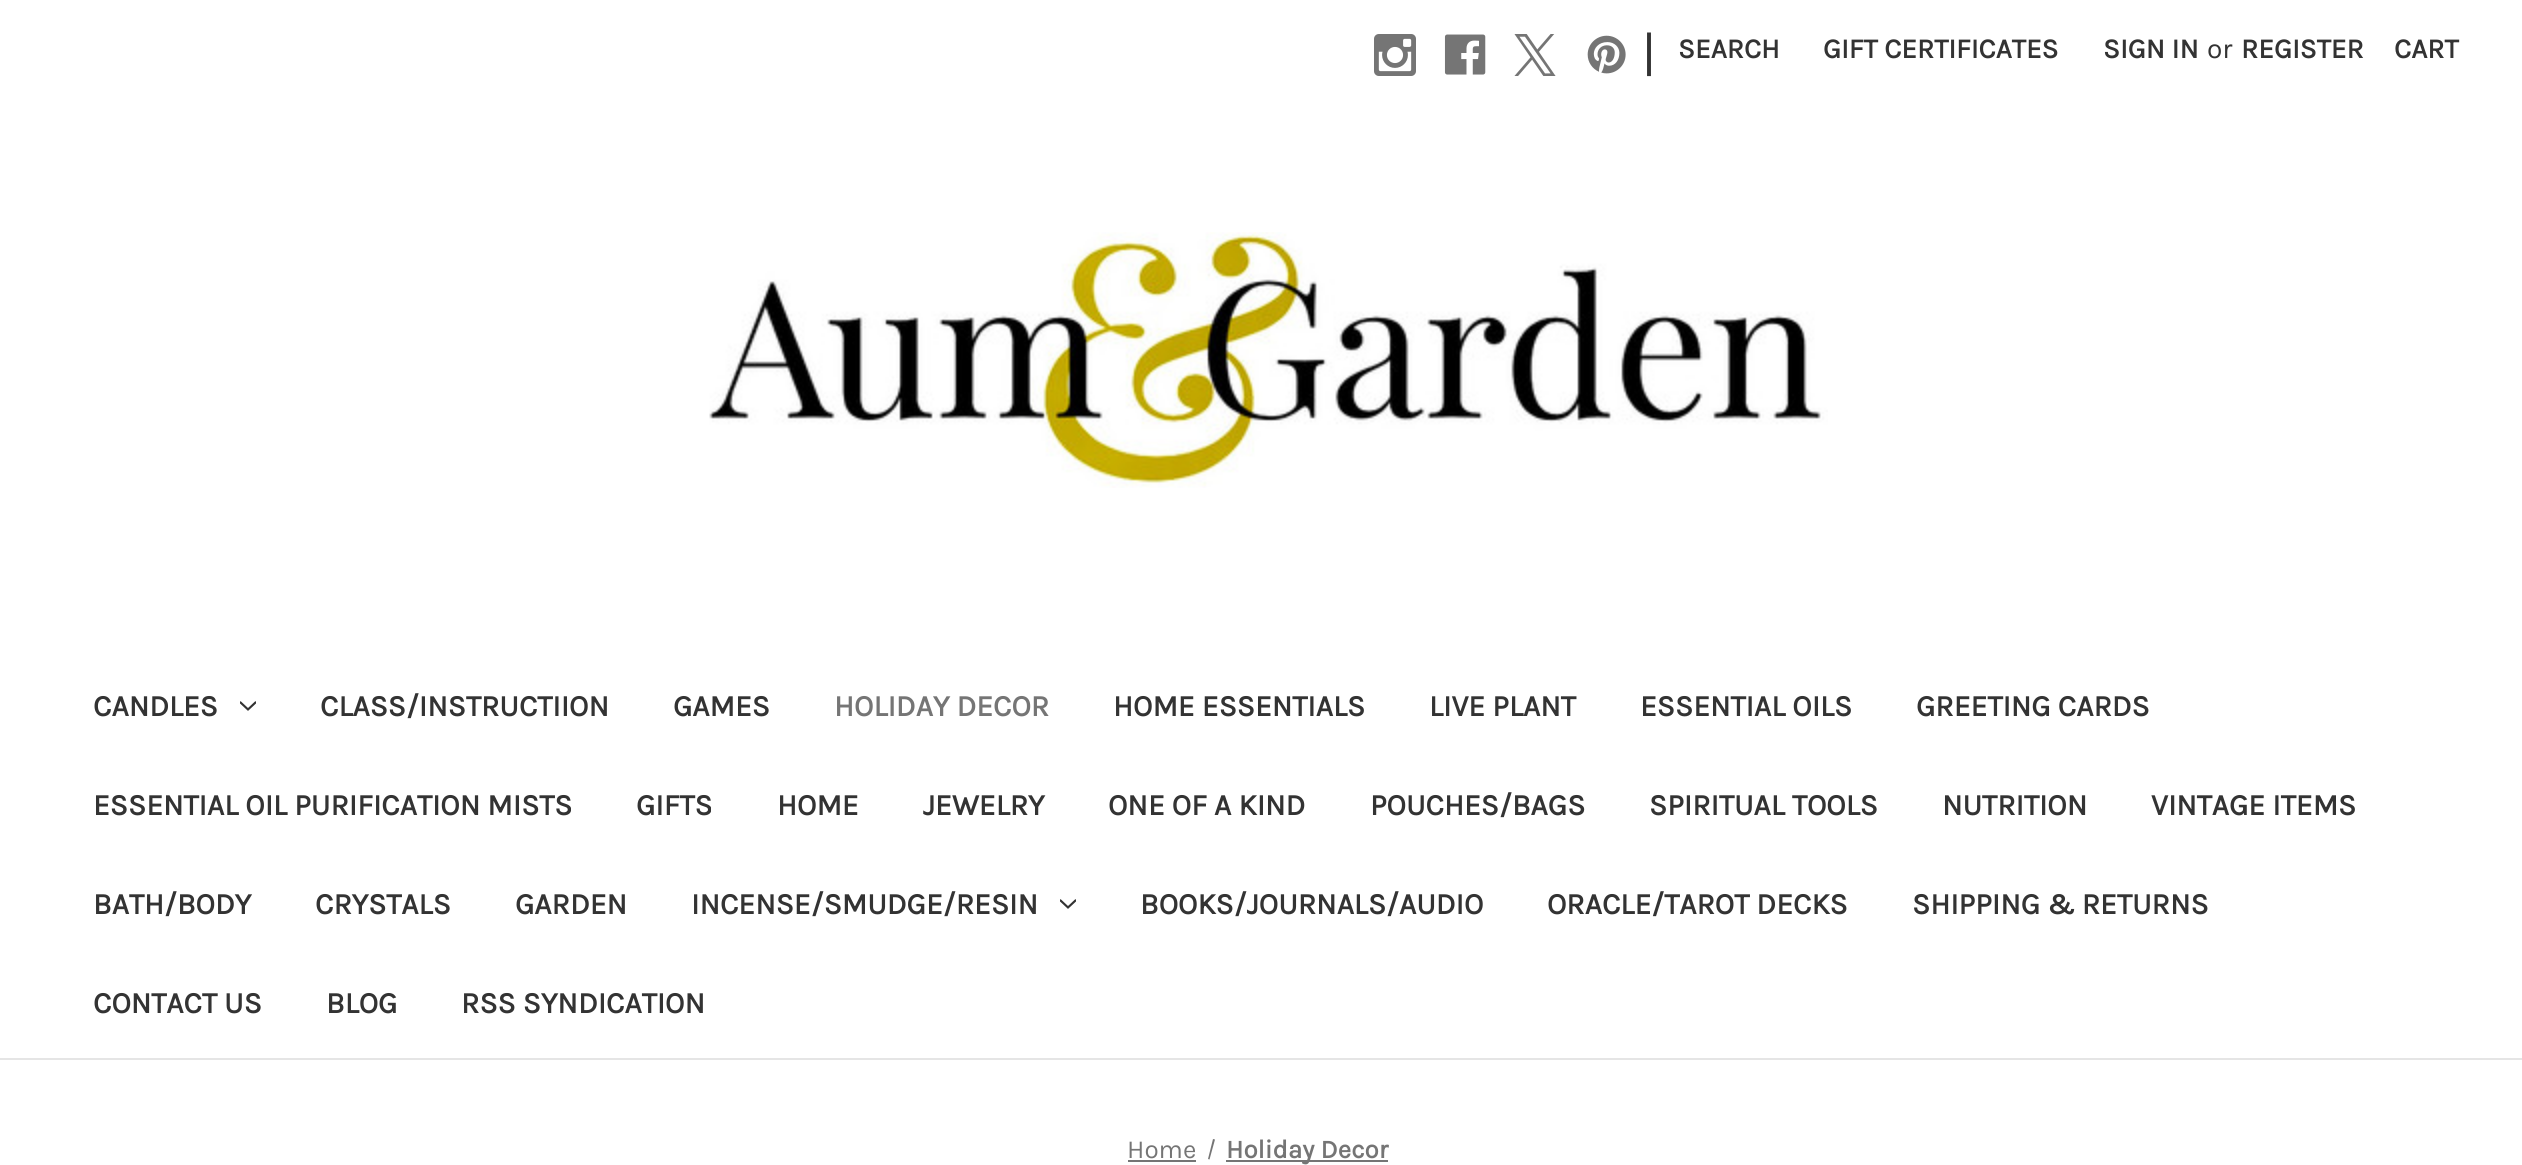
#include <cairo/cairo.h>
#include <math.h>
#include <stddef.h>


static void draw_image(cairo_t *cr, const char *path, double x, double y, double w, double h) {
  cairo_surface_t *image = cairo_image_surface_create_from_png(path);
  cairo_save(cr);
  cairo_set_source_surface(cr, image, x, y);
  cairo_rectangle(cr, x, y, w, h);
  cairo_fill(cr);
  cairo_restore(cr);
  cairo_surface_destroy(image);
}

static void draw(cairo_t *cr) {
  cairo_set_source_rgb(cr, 1, 1, 1);
  cairo_paint(cr);
  cairo_set_source_rgb(cr, 229 / 255.0, 229 / 255.0, 229 / 255.0);
  cairo_rectangle(cr, 0, 1058, 2522, 2);
  cairo_fill(cr);
  draw_image(cr, "images/1.png", 1374, 34, 42, 42);
  draw_image(cr, "images/2.png", 1444, 34, 42, 41);
  draw_image(cr, "images/3.png", 1514, 34, 42, 42);
  draw_image(cr, "images/4.png", 1587, 35, 39, 39);
  draw_image(cr, "images/5.png", 709, 232, 1119, 256);
  draw_image(cr, "images/6.png", 240, 701, 16, 10);
  draw_image(cr, "images/6.png", 1060, 899, 16, 10);
  cairo_set_source_rgb(cr, 117 / 255.0, 117 / 255.0, 117 / 255.0);
  cairo_rectangle(cr, 1128, 1160, 68, 2);
  cairo_fill(cr);
  cairo_new_path(cr);
  cairo_move_to(cr, 1213, 1139);
  cairo_line_to(cr, 1215, 1139.5);
  cairo_line_to(cr, 1209.5, 1159.5);
  cairo_line_to(cr, 1208, 1159);
  cairo_close_path(cr);
  cairo_fill(cr);
  cairo_rectangle(cr, 1226, 1160, 162, 2);
  cairo_fill(cr);
  cairo_select_font_face(cr, "Karla", CAIRO_FONT_SLANT_NORMAL, CAIRO_FONT_WEIGHT_NORMAL);
  cairo_set_font_size(cr, 50);
  cairo_set_source_rgb(cr, 51 / 255.0, 51 / 255.0, 51 / 255.0);
  cairo_move_to(cr, 1642, 70);
  cairo_show_text(cr, "|");
  cairo_select_font_face(cr, "Karla", CAIRO_FONT_SLANT_NORMAL, CAIRO_FONT_WEIGHT_BOLD);
  cairo_set_font_size(cr, 28);
  cairo_move_to(cr, 1678, 58);
  cairo_show_text(cr, "SEARCH");
  cairo_move_to(cr, 1823, 58);
  cairo_show_text(cr, "GIFT CERTIFICATES");
  cairo_move_to(cr, 2103, 58);
  cairo_show_text(cr, "SIGN IN");
  cairo_select_font_face(cr, "Karla", CAIRO_FONT_SLANT_NORMAL, CAIRO_FONT_WEIGHT_NORMAL);
  cairo_move_to(cr, 2207, 58);
  cairo_show_text(cr, "or");
  cairo_select_font_face(cr, "Karla", CAIRO_FONT_SLANT_NORMAL, CAIRO_FONT_WEIGHT_BOLD);
  cairo_move_to(cr, 2241, 58);
  cairo_show_text(cr, "REGISTER");
  cairo_move_to(cr, 2394, 58);
  cairo_show_text(cr, "CART");
  cairo_set_font_size(cr, 30);
  cairo_move_to(cr, 93, 716);
  cairo_show_text(cr, "CANDLES");
  cairo_move_to(cr, 320, 716);
  cairo_show_text(cr, "CLASS/INSTRUCTIION");
  cairo_move_to(cr, 673, 716);
  cairo_show_text(cr, "GAMES");
  cairo_set_source_rgb(cr, 117 / 255.0, 117 / 255.0, 117 / 255.0);
  cairo_move_to(cr, 834, 716);
  cairo_show_text(cr, "HOLIDAY DECOR");
  cairo_set_source_rgb(cr, 51 / 255.0, 51 / 255.0, 51 / 255.0);
  cairo_move_to(cr, 1113, 716);
  cairo_show_text(cr, "HOME ESSENTIALS");
  cairo_move_to(cr, 1429, 716);
  cairo_show_text(cr, "LIVE PLANT");
  cairo_move_to(cr, 1640, 716);
  cairo_show_text(cr, "ESSENTIAL OILS");
  cairo_move_to(cr, 1916, 716);
  cairo_show_text(cr, "GREETING CARDS");
  cairo_move_to(cr, 93, 815);
  cairo_show_text(cr, "ESSENTIAL OIL PURIFICATION MISTS");
  cairo_move_to(cr, 636, 815);
  cairo_show_text(cr, "GIFTS");
  cairo_move_to(cr, 777, 815);
  cairo_show_text(cr, "HOME");
  cairo_move_to(cr, 923, 815);
  cairo_show_text(cr, "JEWELRY");
  cairo_move_to(cr, 1108, 815);
  cairo_show_text(cr, "ONE OF A KIND");
  cairo_move_to(cr, 1370, 815);
  cairo_show_text(cr, "POUCHES/BAGS");
  cairo_move_to(cr, 1649, 815);
  cairo_show_text(cr, "SPIRITUAL TOOLS");
  cairo_move_to(cr, 1942, 815);
  cairo_show_text(cr, "NUTRITION");
  cairo_move_to(cr, 2151, 815);
  cairo_show_text(cr, "VINTAGE ITEMS");
  cairo_move_to(cr, 93, 914);
  cairo_show_text(cr, "BATH/BODY");
  cairo_move_to(cr, 315, 914);
  cairo_show_text(cr, "CRYSTALS");
  cairo_move_to(cr, 515, 914);
  cairo_show_text(cr, "GARDEN");
  cairo_move_to(cr, 691, 914);
  cairo_show_text(cr, "INCENSE/SMUDGE/RESIN");
  cairo_move_to(cr, 1140, 914);
  cairo_show_text(cr, "BOOKS/JOURNALS/AUDIO");
  cairo_move_to(cr, 1547, 914);
  cairo_show_text(cr, "ORACLE/TAROT DECKS");
  cairo_move_to(cr, 1912, 914);
  cairo_show_text(cr, "SHIPPING & RETURNS");
  cairo_move_to(cr, 93, 1013);
  cairo_show_text(cr, "CONTACT US");
  cairo_move_to(cr, 326, 1013);
  cairo_show_text(cr, "BLOG");
  cairo_move_to(cr, 461, 1013);
  cairo_show_text(cr, "RSS SYNDICATION");
  cairo_select_font_face(cr, "Karla", CAIRO_FONT_SLANT_NORMAL, CAIRO_FONT_WEIGHT_NORMAL);
  cairo_set_font_size(cr, 26);
  cairo_set_source_rgb(cr, 117 / 255.0, 117 / 255.0, 117 / 255.0);
  cairo_move_to(cr, 1127, 1158);
  cairo_show_text(cr, "Home");
  cairo_select_font_face(cr, "Karla", CAIRO_FONT_SLANT_NORMAL, CAIRO_FONT_WEIGHT_BOLD);
  cairo_move_to(cr, 1226, 1158);
  cairo_show_text(cr, "Holiday Decor");
}

int main(void) {
  cairo_surface_t *surface = cairo_image_surface_create(CAIRO_FORMAT_RGB24, 2522, 1165);
  cairo_t *cr = cairo_create(surface);
  cairo_font_options_t *options = cairo_font_options_create();
  cairo_font_options_set_hint_metrics(options, CAIRO_HINT_METRICS_OFF);
  cairo_font_options_set_hint_style(options, CAIRO_HINT_STYLE_NONE);
  cairo_set_font_options(cr, options);
  cairo_set_miter_limit(cr, 4);
  draw(cr);
  cairo_surface_write_to_png(surface, "out.png");
  cairo_font_options_destroy(options);
  cairo_destroy(cr);
  cairo_surface_destroy(surface);
  return 0;
}
